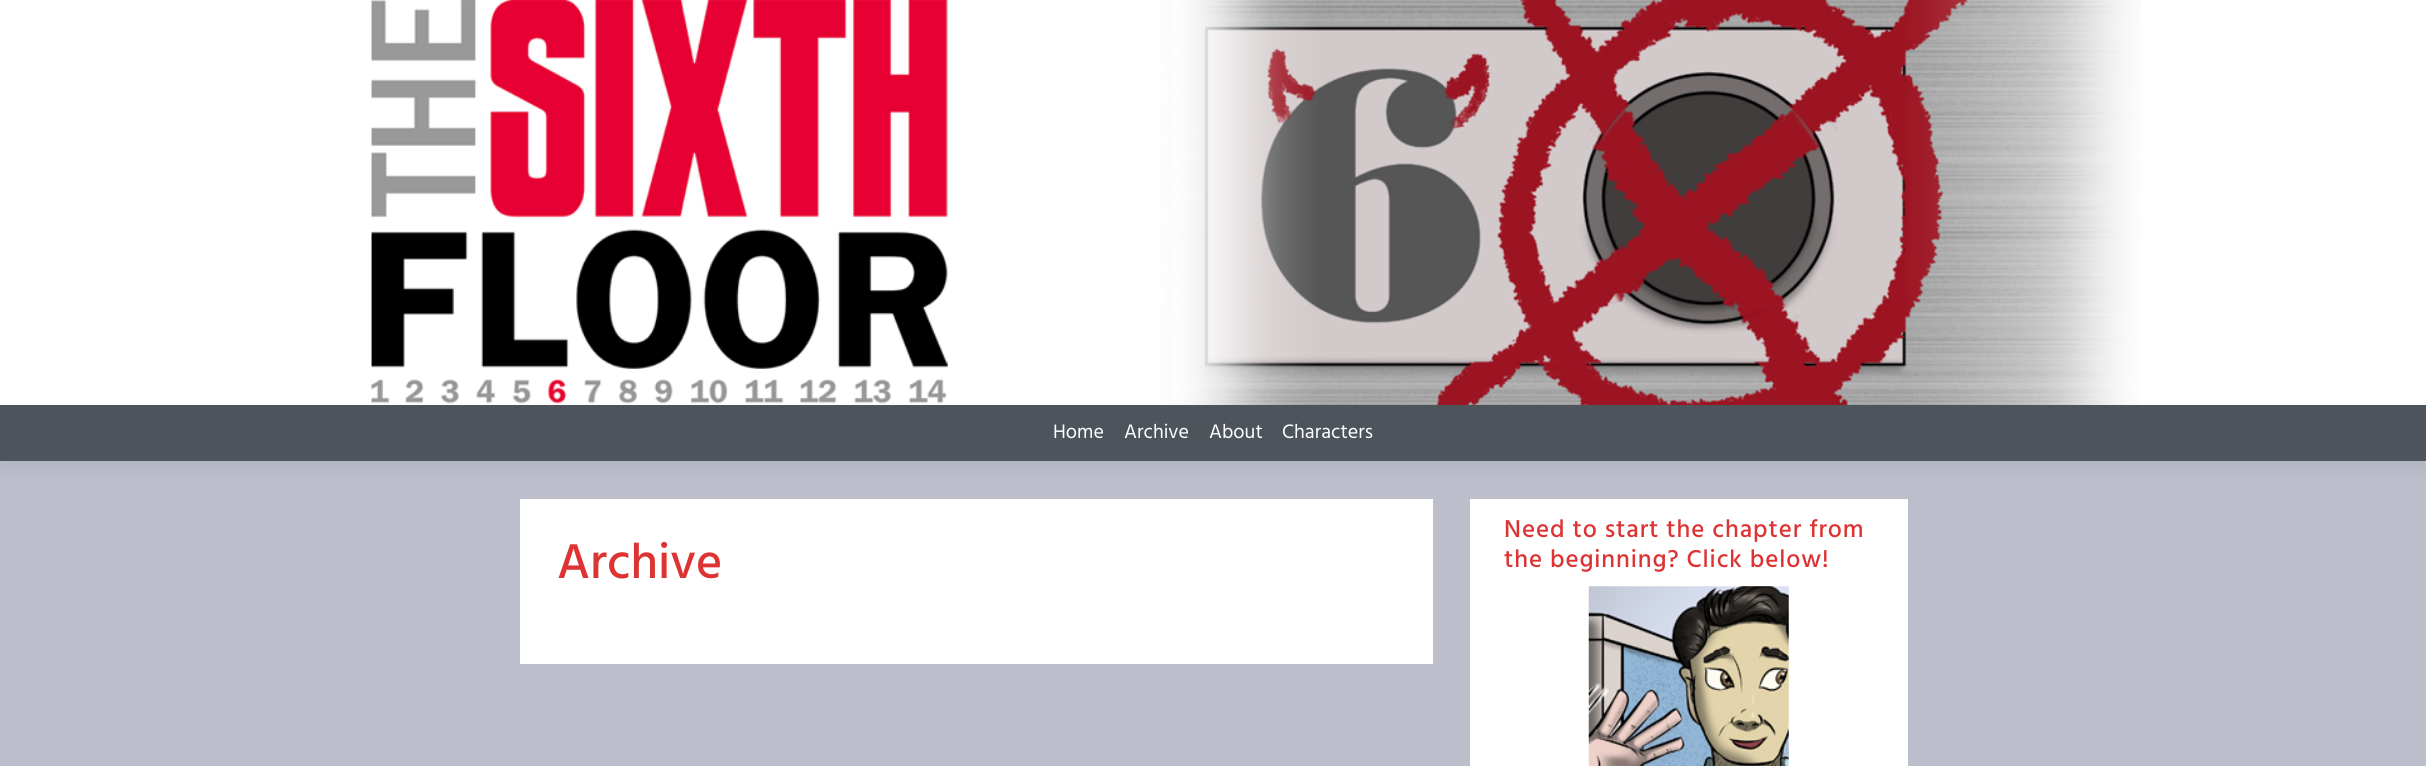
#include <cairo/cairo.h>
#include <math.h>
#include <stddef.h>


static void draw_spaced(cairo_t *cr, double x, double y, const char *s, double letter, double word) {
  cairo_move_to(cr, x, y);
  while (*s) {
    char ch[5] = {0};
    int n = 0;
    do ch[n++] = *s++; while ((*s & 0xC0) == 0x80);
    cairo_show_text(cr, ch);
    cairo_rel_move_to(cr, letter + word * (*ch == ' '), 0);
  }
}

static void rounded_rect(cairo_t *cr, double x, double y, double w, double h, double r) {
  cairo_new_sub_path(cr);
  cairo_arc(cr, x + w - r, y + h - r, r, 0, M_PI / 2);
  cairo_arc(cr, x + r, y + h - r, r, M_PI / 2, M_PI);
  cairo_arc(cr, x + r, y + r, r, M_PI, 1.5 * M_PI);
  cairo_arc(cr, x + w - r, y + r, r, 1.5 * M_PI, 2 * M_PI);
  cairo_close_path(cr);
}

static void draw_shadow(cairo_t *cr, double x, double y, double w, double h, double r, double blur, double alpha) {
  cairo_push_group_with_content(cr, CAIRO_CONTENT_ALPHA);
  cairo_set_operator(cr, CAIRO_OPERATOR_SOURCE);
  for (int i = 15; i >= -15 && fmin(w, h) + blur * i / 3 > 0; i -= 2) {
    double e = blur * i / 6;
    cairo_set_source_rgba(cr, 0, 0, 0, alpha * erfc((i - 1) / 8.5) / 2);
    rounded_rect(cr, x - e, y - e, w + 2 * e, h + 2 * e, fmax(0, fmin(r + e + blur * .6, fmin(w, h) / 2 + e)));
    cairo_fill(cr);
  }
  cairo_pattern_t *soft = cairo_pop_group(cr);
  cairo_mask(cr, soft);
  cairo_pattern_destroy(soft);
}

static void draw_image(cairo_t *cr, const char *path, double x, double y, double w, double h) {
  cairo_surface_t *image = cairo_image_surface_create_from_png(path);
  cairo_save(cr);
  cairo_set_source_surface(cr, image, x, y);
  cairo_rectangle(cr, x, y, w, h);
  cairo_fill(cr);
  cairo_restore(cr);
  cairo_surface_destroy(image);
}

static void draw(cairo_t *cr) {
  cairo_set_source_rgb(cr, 189 / 255.0, 190 / 255.0, 204 / 255.0);
  cairo_paint(cr);
  cairo_set_source_rgb(cr, 1, 1, 1);
  cairo_rectangle(cr, 0, 0, 2426, 405);
  cairo_fill(cr);
  draw_image(cr, "images/1.png", 371, 0, 1770, 405);
  cairo_set_source_rgb(cr, 50 / 255.0, 50 / 255.0, 50 / 255.0);
  draw_shadow(cr, 0, 411, 2426, 57, 0, 7, 0.08);
  cairo_set_source_rgb(cr, 77 / 255.0, 84 / 255.0, 92 / 255.0);
  cairo_rectangle(cr, 0, 405, 2426, 56);
  cairo_fill(cr);
  cairo_set_source_rgb(cr, 1, 1, 1);
  cairo_rectangle(cr, 520, 499, 913, 165);
  cairo_fill(cr);
  cairo_rectangle(cr, 1470, 499, 438, 267);
  cairo_fill(cr);
  draw_image(cr, "images/2.png", 1588, 586, 201, 180);
  cairo_select_font_face(cr, "Hind", CAIRO_FONT_SLANT_NORMAL, CAIRO_FONT_WEIGHT_NORMAL);
  cairo_set_font_size(cr, 20);
  cairo_move_to(cr, 1053, 438);
  cairo_show_text(cr, "Home");
  cairo_move_to(cr, 1124, 438);
  cairo_show_text(cr, "Archive");
  cairo_move_to(cr, 1209, 438);
  cairo_show_text(cr, "About");
  cairo_move_to(cr, 1282, 438);
  cairo_show_text(cr, "Characters");
  cairo_select_font_face(cr, "Hind Medium", CAIRO_FONT_SLANT_NORMAL, CAIRO_FONT_WEIGHT_NORMAL);
  cairo_set_font_size(cr, 50);
  cairo_set_source_rgb(cr, 221 / 255.0, 51 / 255.0, 51 / 255.0);
  cairo_move_to(cr, 557, 578);
  cairo_show_text(cr, "Archive");
  cairo_set_font_size(cr, 25);
  draw_spaced(cr, 1504, 537, "Need to start the chapter from", 0.9, 0);
  draw_spaced(cr, 1504, 567, "the beginning? Click below!", 0.9, 0);
}

int main(void) {
  cairo_surface_t *surface = cairo_image_surface_create(CAIRO_FORMAT_RGB24, 2426, 766);
  cairo_t *cr = cairo_create(surface);
  cairo_font_options_t *options = cairo_font_options_create();
  cairo_font_options_set_hint_metrics(options, CAIRO_HINT_METRICS_OFF);
  cairo_font_options_set_hint_style(options, CAIRO_HINT_STYLE_NONE);
  cairo_set_font_options(cr, options);
  cairo_set_miter_limit(cr, 4);
  draw(cr);
  cairo_surface_write_to_png(surface, "out.png");
  cairo_font_options_destroy(options);
  cairo_destroy(cr);
  cairo_surface_destroy(surface);
  return 0;
}
